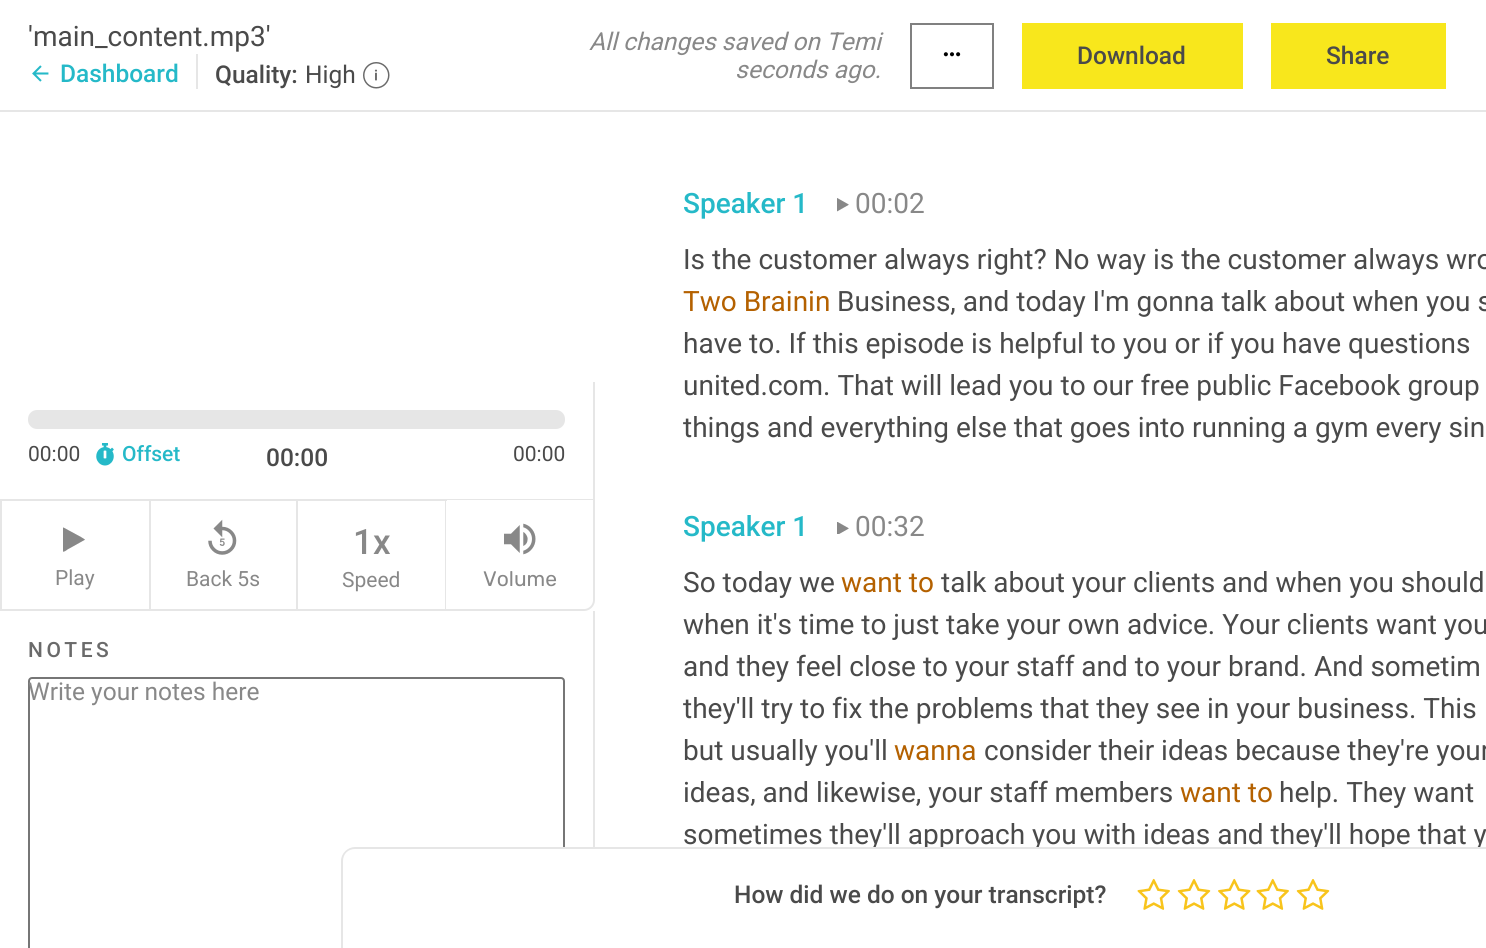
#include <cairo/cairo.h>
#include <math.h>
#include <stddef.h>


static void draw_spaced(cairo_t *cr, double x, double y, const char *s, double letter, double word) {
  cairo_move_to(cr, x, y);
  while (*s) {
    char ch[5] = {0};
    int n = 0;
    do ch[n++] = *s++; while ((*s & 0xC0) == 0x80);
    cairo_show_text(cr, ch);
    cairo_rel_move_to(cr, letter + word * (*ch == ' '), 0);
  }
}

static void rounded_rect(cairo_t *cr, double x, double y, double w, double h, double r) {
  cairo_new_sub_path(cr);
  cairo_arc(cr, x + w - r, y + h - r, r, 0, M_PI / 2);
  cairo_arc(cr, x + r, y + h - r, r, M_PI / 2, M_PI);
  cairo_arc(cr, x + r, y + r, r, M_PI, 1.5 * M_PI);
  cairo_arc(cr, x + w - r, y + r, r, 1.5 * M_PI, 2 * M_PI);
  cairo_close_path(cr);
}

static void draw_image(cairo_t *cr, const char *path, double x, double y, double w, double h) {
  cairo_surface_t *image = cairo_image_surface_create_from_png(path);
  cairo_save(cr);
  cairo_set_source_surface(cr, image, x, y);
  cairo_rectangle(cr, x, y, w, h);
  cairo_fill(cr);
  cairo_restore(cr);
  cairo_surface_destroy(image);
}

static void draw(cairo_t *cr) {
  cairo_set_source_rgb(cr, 1, 1, 1);
  cairo_paint(cr);
  cairo_set_source_rgb(cr, 230 / 255.0, 230 / 255.0, 230 / 255.0);
  cairo_rectangle(cr, 0, 110, 1486, 2);
  cairo_fill(cr);
  draw_image(cr, "images/1.png", 32, 65, 17, 17);
  cairo_rectangle(cr, 196, 54, 2, 35);
  cairo_fill(cr);
  draw_image(cr, "images/2.png", 363, 62, 27, 27);
  cairo_rectangle(cr, 911, 24, 82, 64);
  cairo_set_source_rgb(cr, 128 / 255.0, 128 / 255.0, 128 / 255.0);
  cairo_stroke(cr);
  draw_image(cr, "images/3.png", 943, 52, 18, 5);
  cairo_set_source_rgb(cr, 248 / 255.0, 231 / 255.0, 28 / 255.0);
  cairo_rectangle(cr, 1022, 23, 221, 66);
  cairo_fill(cr);
  cairo_rectangle(cr, 1271, 23, 175, 66);
  cairo_fill(cr);
  cairo_set_source_rgb(cr, 230 / 255.0, 230 / 255.0, 230 / 255.0);
  cairo_rectangle(cr, 593, 382, 2, 117);
  cairo_fill(cr);
  rounded_rect(cr, 28, 410, 537, 19, 9);
  cairo_fill(cr);
  draw_image(cr, "images/4.png", 96, 443, 18, 23);
  cairo_rectangle(cr, 1, 500, 149, 110);
  cairo_stroke(cr);
  cairo_set_source_rgb(cr, 136 / 255.0, 136 / 255.0, 136 / 255.0);
  cairo_new_path(cr);
  cairo_move_to(cr, 84.5, 540);
  cairo_line_to(cr, 67.5, 549.5);
  cairo_curve_to(cr, 67, 550, 63.5, 552.5, 63, 551.5);
  cairo_line_to(cr, 63, 527.5);
  cairo_line_to(cr, 63.5, 527.5);
  cairo_line_to(cr, 81, 537);
  cairo_line_to(cr, 85, 539.5);
  cairo_close_path(cr);
  cairo_fill(cr);
  cairo_set_source_rgb(cr, 230 / 255.0, 230 / 255.0, 230 / 255.0);
  cairo_rectangle(cr, 151, 499, 295, 2);
  cairo_fill(cr);
  cairo_rectangle(cr, 296, 499, 2, 112);
  cairo_fill(cr);
  cairo_rectangle(cr, 151, 609, 147, 2);
  cairo_fill(cr);
  draw_image(cr, "images/5.png", 208, 519, 29, 36);
  cairo_rectangle(cr, 445, 499, 2, 112);
  cairo_fill(cr);
  cairo_rectangle(cr, 298, 609, 148, 2);
  cairo_fill(cr);
  cairo_set_fill_rule(cr, CAIRO_FILL_RULE_EVEN_ODD);
  cairo_new_path(cr);
  cairo_move_to(cr, 446, 499);
  cairo_line_to(cr, 595, 499);
  cairo_line_to(cr, 595, 600);
  cairo_curve_to(cr, 595, 606, 590, 611, 584, 611);
  cairo_line_to(cr, 446, 611);
  cairo_close_path(cr);
  cairo_move_to(cr, 446, 500);
  cairo_line_to(cr, 593, 500);
  cairo_line_to(cr, 593, 600);
  cairo_curve_to(cr, 593, 605, 589, 609, 584, 609);
  cairo_line_to(cr, 446, 609);
  cairo_close_path(cr);
  cairo_fill(cr);
  cairo_set_source_rgb(cr, 1, 1, 1);
  cairo_new_path(cr);
  cairo_move_to(cr, 446, 501);
  cairo_line_to(cr, 593, 501);
  cairo_line_to(cr, 593, 598);
  cairo_curve_to(cr, 593, 604, 588, 609, 582, 609);
  cairo_line_to(cr, 446, 609);
  cairo_close_path(cr);
  cairo_fill(cr);
  draw_image(cr, "images/6.png", 504, 523, 32, 32);
  cairo_set_source_rgb(cr, 230 / 255.0, 230 / 255.0, 230 / 255.0);
  cairo_rectangle(cr, 593, 611, 2, 236);
  cairo_fill(cr);
  rounded_rect(cr, 29, 678, 535, 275, 3);
  cairo_set_source_rgb(cr, 118 / 255.0, 118 / 255.0, 118 / 255.0);
  cairo_stroke(cr);
  draw_image(cr, "images/7.png", 837, 198, 12, 14);
  draw_image(cr, "images/8.png", 837, 522, 12, 12);
  cairo_select_font_face(cr, "Roboto", CAIRO_FONT_SLANT_NORMAL, CAIRO_FONT_WEIGHT_NORMAL);
  cairo_set_font_size(cr, 28);
  cairo_set_source_rgb(cr, 74 / 255.0, 74 / 255.0, 74 / 255.0);
  cairo_move_to(cr, 28, 46);
  cairo_show_text(cr, "'main_content.mp3'");
  cairo_select_font_face(cr, "Roboto Medium", CAIRO_FONT_SLANT_NORMAL, CAIRO_FONT_WEIGHT_NORMAL);
  cairo_set_font_size(cr, 24.5);
  cairo_set_source_rgb(cr, 37 / 255.0, 185 / 255.0, 200 / 255.0);
  cairo_move_to(cr, 60, 82);
  cairo_show_text(cr, "Dashboard");
  cairo_set_source_rgb(cr, 74 / 255.0, 74 / 255.0, 74 / 255.0);
  cairo_move_to(cr, 215, 83);
  cairo_show_text(cr, "Quality:");
  cairo_select_font_face(cr, "Roboto", CAIRO_FONT_SLANT_NORMAL, CAIRO_FONT_WEIGHT_NORMAL);
  cairo_move_to(cr, 305, 83);
  cairo_show_text(cr, "High");
  cairo_select_font_face(cr, "Roboto", CAIRO_FONT_SLANT_ITALIC, CAIRO_FONT_WEIGHT_NORMAL);
  cairo_set_source_rgb(cr, 136 / 255.0, 136 / 255.0, 136 / 255.0);
  cairo_move_to(cr, 589, 50);
  cairo_show_text(cr, "All changes saved on Temi");
  cairo_move_to(cr, 735, 78);
  cairo_show_text(cr, "seconds ago.");
  cairo_select_font_face(cr, "Roboto Medium", CAIRO_FONT_SLANT_NORMAL, CAIRO_FONT_WEIGHT_NORMAL);
  cairo_set_source_rgb(cr, 74 / 255.0, 74 / 255.0, 74 / 255.0);
  cairo_move_to(cr, 1077, 64);
  cairo_show_text(cr, "Download");
  cairo_move_to(cr, 1326, 64);
  cairo_show_text(cr, "Share");
  cairo_select_font_face(cr, "Roboto", CAIRO_FONT_SLANT_NORMAL, CAIRO_FONT_WEIGHT_NORMAL);
  cairo_set_font_size(cr, 21);
  cairo_move_to(cr, 28, 461);
  cairo_show_text(cr, "00:00");
  cairo_select_font_face(cr, "Roboto Medium", CAIRO_FONT_SLANT_NORMAL, CAIRO_FONT_WEIGHT_NORMAL);
  cairo_set_source_rgb(cr, 37 / 255.0, 185 / 255.0, 200 / 255.0);
  cairo_move_to(cr, 122, 461);
  cairo_show_text(cr, "Offset");
  cairo_set_font_size(cr, 24.5);
  cairo_set_source_rgb(cr, 74 / 255.0, 74 / 255.0, 74 / 255.0);
  cairo_move_to(cr, 266, 466);
  cairo_show_text(cr, "00:00");
  cairo_select_font_face(cr, "Roboto", CAIRO_FONT_SLANT_NORMAL, CAIRO_FONT_WEIGHT_NORMAL);
  cairo_set_font_size(cr, 21);
  cairo_move_to(cr, 513, 461);
  cairo_show_text(cr, "00:00");
  cairo_set_source_rgb(cr, 136 / 255.0, 136 / 255.0, 136 / 255.0);
  cairo_move_to(cr, 55, 585);
  cairo_show_text(cr, "Play");
  cairo_move_to(cr, 186, 586);
  cairo_show_text(cr, "Back 5s");
  cairo_select_font_face(cr, "Roboto Medium", CAIRO_FONT_SLANT_NORMAL, CAIRO_FONT_WEIGHT_NORMAL);
  cairo_set_font_size(cr, 35);
  cairo_move_to(cr, 353, 554);
  cairo_show_text(cr, "1x");
  cairo_select_font_face(cr, "Roboto", CAIRO_FONT_SLANT_NORMAL, CAIRO_FONT_WEIGHT_NORMAL);
  cairo_set_font_size(cr, 21);
  cairo_move_to(cr, 342, 587);
  cairo_show_text(cr, "Speed");
  cairo_select_font_face(cr, "Rubik", CAIRO_FONT_SLANT_NORMAL, CAIRO_FONT_WEIGHT_NORMAL);
  cairo_move_to(cr, 483, 586);
  cairo_show_text(cr, "Volume");
  cairo_select_font_face(cr, "Roboto Medium", CAIRO_FONT_SLANT_NORMAL, CAIRO_FONT_WEIGHT_NORMAL);
  cairo_set_source_rgb(cr, 106 / 255.0, 106 / 255.0, 106 / 255.0);
  draw_spaced(cr, 28, 657, "NOTES", 3.5, 0);
  cairo_select_font_face(cr, "Roboto", CAIRO_FONT_SLANT_NORMAL, CAIRO_FONT_WEIGHT_NORMAL);
  cairo_set_font_size(cr, 24.5);
  cairo_set_source_rgb(cr, 136 / 255.0, 136 / 255.0, 136 / 255.0);
  cairo_move_to(cr, 28, 700);
  cairo_show_text(cr, "Write your notes here");
  cairo_select_font_face(cr, "Roboto Medium", CAIRO_FONT_SLANT_NORMAL, CAIRO_FONT_WEIGHT_NORMAL);
  cairo_set_font_size(cr, 28);
  cairo_set_source_rgb(cr, 37 / 255.0, 185 / 255.0, 200 / 255.0);
  cairo_move_to(cr, 683, 213);
  cairo_show_text(cr, "Speaker 1");
  cairo_select_font_face(cr, "Roboto", CAIRO_FONT_SLANT_NORMAL, CAIRO_FONT_WEIGHT_NORMAL);
  cairo_set_source_rgb(cr, 136 / 255.0, 136 / 255.0, 136 / 255.0);
  cairo_move_to(cr, 855, 213);
  cairo_show_text(cr, "00:02");
  cairo_set_source_rgb(cr, 74 / 255.0, 74 / 255.0, 74 / 255.0);
  cairo_move_to(cr, 683, 269);
  cairo_show_text(cr, "Is the customer always right? No way is the customer always wro");
  cairo_set_source_rgb(cr, 180 / 255.0, 97 / 255.0, 0);
  cairo_move_to(cr, 683, 311);
  cairo_show_text(cr, "Two Brainin");
  cairo_set_source_rgb(cr, 74 / 255.0, 74 / 255.0, 74 / 255.0);
  cairo_move_to(cr, 837, 311);
  cairo_show_text(cr, "Business, and today I'm gonna talk about when you s");
  cairo_move_to(cr, 683, 353);
  cairo_show_text(cr, "have to. If this episode is helpful to you or if you have questions");
  cairo_move_to(cr, 683, 395);
  cairo_show_text(cr, "united.com. That will lead you to our free public Facebook group");
  cairo_move_to(cr, 683, 437);
  cairo_show_text(cr, "things and everything else that goes into running a gym every sin");
  cairo_select_font_face(cr, "Roboto Medium", CAIRO_FONT_SLANT_NORMAL, CAIRO_FONT_WEIGHT_NORMAL);
  cairo_set_source_rgb(cr, 37 / 255.0, 185 / 255.0, 200 / 255.0);
  cairo_move_to(cr, 683, 536);
  cairo_show_text(cr, "Speaker 1");
  cairo_select_font_face(cr, "Roboto", CAIRO_FONT_SLANT_NORMAL, CAIRO_FONT_WEIGHT_NORMAL);
  cairo_set_source_rgb(cr, 136 / 255.0, 136 / 255.0, 136 / 255.0);
  cairo_move_to(cr, 855, 536);
  cairo_show_text(cr, "00:32");
  cairo_set_source_rgb(cr, 74 / 255.0, 74 / 255.0, 74 / 255.0);
  cairo_move_to(cr, 683, 592);
  cairo_show_text(cr, "So today we");
  cairo_set_source_rgb(cr, 180 / 255.0, 97 / 255.0, 0);
  cairo_move_to(cr, 841, 592);
  cairo_show_text(cr, "want to");
  cairo_set_source_rgb(cr, 74 / 255.0, 74 / 255.0, 74 / 255.0);
  cairo_move_to(cr, 941, 592);
  cairo_show_text(cr, "talk about your clients and when you should");
  cairo_move_to(cr, 683, 634);
  cairo_show_text(cr, "when it's time to just take your own advice. Your clients want you");
  cairo_move_to(cr, 683, 676);
  cairo_show_text(cr, "and they feel close to your staff and to your brand. And sometim");
  cairo_move_to(cr, 683, 718);
  cairo_show_text(cr, "they'll try to fix the problems that they see in your business. This");
  cairo_move_to(cr, 683, 760);
  cairo_show_text(cr, "but usually you'll");
  cairo_set_source_rgb(cr, 180 / 255.0, 97 / 255.0, 0);
  cairo_move_to(cr, 894, 760);
  cairo_show_text(cr, "wanna");
  cairo_set_source_rgb(cr, 74 / 255.0, 74 / 255.0, 74 / 255.0);
  cairo_move_to(cr, 984, 760);
  cairo_show_text(cr, "consider their ideas because they're your");
  cairo_move_to(cr, 683, 802);
  cairo_show_text(cr, "ideas, and likewise, your staff members");
  cairo_set_source_rgb(cr, 180 / 255.0, 97 / 255.0, 0);
  cairo_move_to(cr, 1180, 802);
  cairo_show_text(cr, "want to");
  cairo_set_source_rgb(cr, 74 / 255.0, 74 / 255.0, 74 / 255.0);
  cairo_move_to(cr, 1279, 802);
  cairo_show_text(cr, "help. They want");
  cairo_move_to(cr, 683, 844);
  cairo_show_text(cr, "sometimes they'll approach you with ideas and they'll hope that y");
  cairo_set_source_rgb(cr, 1, 1, 1);
  cairo_new_path(cr);
  cairo_move_to(cr, 355, 849);
  cairo_line_to(cr, 1486, 849);
  cairo_curve_to(cr, 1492.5, 849, 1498, 854.5, 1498, 861);
  cairo_line_to(cr, 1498, 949);
  cairo_line_to(cr, 343, 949);
  cairo_line_to(cr, 343, 861);
  cairo_curve_to(cr, 343, 854.5, 348.5, 849, 355, 849);
  cairo_close_path(cr);
  cairo_fill(cr);
  cairo_set_source_rgb(cr, 230 / 255.0, 230 / 255.0, 230 / 255.0);
  cairo_new_path(cr);
  cairo_move_to(cr, 355, 847);
  cairo_line_to(cr, 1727, 847);
  cairo_curve_to(cr, 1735, 847, 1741, 853, 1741, 861);
  cairo_line_to(cr, 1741, 948);
  cairo_line_to(cr, 341, 948);
  cairo_line_to(cr, 341, 861);
  cairo_curve_to(cr, 341, 853, 348, 847, 355, 847);
  cairo_close_path(cr);
  cairo_move_to(cr, 355, 849);
  cairo_line_to(cr, 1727, 849);
  cairo_curve_to(cr, 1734, 849, 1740, 854, 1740, 861);
  cairo_line_to(cr, 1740, 948);
  cairo_line_to(cr, 343, 948);
  cairo_line_to(cr, 343, 861);
  cairo_curve_to(cr, 343, 854, 348, 849, 355, 849);
  cairo_close_path(cr);
  cairo_fill(cr);
  cairo_select_font_face(cr, "Roboto Medium", CAIRO_FONT_SLANT_NORMAL, CAIRO_FONT_WEIGHT_NORMAL);
  cairo_set_font_size(cr, 24.5);
  cairo_set_source_rgb(cr, 74 / 255.0, 74 / 255.0, 74 / 255.0);
  cairo_move_to(cr, 734, 903);
  cairo_show_text(cr, "How did we do on your transcript?");
  draw_image(cr, "images/9.png", 1137, 878, 33, 32);
  draw_image(cr, "images/10.png", 1177, 879, 34, 31);
  draw_image(cr, "images/11.png", 1218, 878, 33, 32);
  draw_image(cr, "images/9.png", 1256, 878, 33, 32);
  draw_image(cr, "images/10.png", 1296, 879, 34, 31);
}

int main(void) {
  cairo_surface_t *surface = cairo_image_surface_create(CAIRO_FORMAT_RGB24, 1486, 948);
  cairo_t *cr = cairo_create(surface);
  cairo_font_options_t *options = cairo_font_options_create();
  cairo_font_options_set_hint_metrics(options, CAIRO_HINT_METRICS_OFF);
  cairo_font_options_set_hint_style(options, CAIRO_HINT_STYLE_NONE);
  cairo_set_font_options(cr, options);
  cairo_set_miter_limit(cr, 4);
  draw(cr);
  cairo_surface_write_to_png(surface, "out.png");
  cairo_font_options_destroy(options);
  cairo_destroy(cr);
  cairo_surface_destroy(surface);
  return 0;
}
